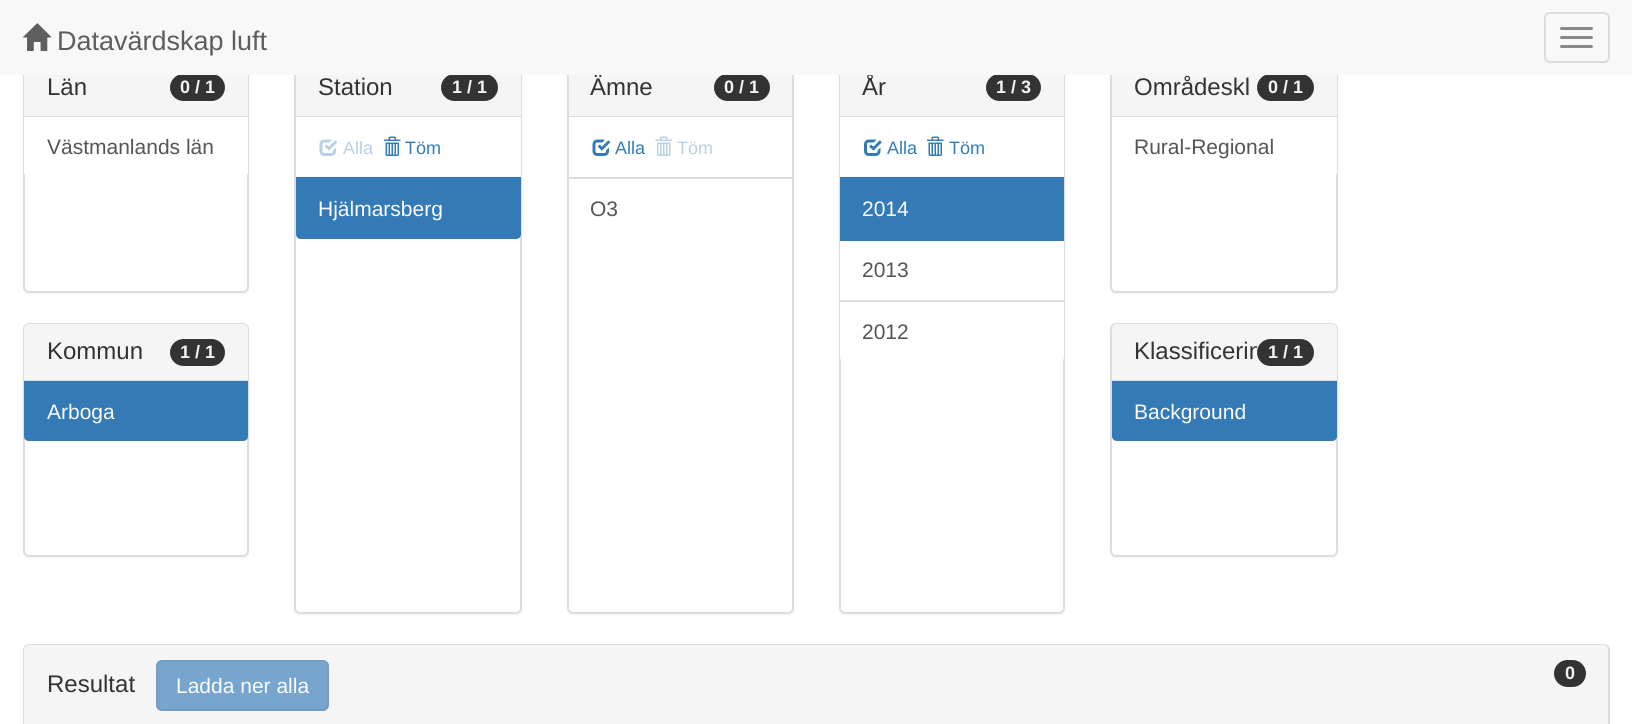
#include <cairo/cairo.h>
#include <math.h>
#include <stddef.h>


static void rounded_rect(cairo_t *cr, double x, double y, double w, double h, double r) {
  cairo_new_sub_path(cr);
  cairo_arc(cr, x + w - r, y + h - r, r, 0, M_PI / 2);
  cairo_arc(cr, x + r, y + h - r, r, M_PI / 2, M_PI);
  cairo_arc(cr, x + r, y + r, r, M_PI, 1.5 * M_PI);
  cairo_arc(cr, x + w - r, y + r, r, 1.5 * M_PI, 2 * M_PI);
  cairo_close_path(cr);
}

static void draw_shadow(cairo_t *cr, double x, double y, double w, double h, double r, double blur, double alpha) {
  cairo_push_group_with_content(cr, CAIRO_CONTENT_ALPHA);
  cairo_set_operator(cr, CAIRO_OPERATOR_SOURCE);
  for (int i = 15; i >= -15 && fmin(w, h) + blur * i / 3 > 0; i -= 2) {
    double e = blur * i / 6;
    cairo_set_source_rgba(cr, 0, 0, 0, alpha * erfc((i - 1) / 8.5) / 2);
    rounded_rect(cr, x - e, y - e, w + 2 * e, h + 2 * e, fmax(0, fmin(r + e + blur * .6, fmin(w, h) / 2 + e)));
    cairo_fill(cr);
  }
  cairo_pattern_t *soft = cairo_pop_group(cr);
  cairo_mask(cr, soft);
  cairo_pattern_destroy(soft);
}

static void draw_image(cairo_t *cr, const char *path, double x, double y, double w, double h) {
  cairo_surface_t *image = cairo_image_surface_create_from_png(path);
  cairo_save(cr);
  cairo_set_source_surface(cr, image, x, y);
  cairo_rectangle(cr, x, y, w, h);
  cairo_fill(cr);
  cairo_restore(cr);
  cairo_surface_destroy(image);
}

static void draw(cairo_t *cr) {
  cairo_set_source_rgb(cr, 1, 1, 1);
  cairo_paint(cr);
  cairo_set_source_rgb(cr, 0, 0, 0);
  draw_shadow(cr, 23, 59, 226, 235, 6, 1, 0.05);
  cairo_set_source_rgb(cr, 1, 1, 1);
  rounded_rect(cr, 24, 58, 224, 234, 5);
  cairo_fill_preserve(cr);
  cairo_set_source_rgb(cr, 221 / 255.0, 221 / 255.0, 221 / 255.0);
  cairo_stroke(cr);
  cairo_set_source_rgb(cr, 245 / 255.0, 245 / 255.0, 245 / 255.0);
  cairo_rectangle(cr, 24, 75, 224, 41);
  cairo_fill(cr);
  cairo_set_source_rgb(cr, 221 / 255.0, 221 / 255.0, 221 / 255.0);
  cairo_rectangle(cr, 24, 116, 224, 1);
  cairo_fill(cr);
  cairo_set_source_rgb(cr, 51 / 255.0, 51 / 255.0, 51 / 255.0);
  rounded_rect(cr, 170, 74, 55, 27, 13.5);
  cairo_fill(cr);
  cairo_set_source_rgb(cr, 1, 1, 1);
  cairo_new_path(cr);
  cairo_move_to(cr, 24, 117);
  cairo_line_to(cr, 248, 117);
  cairo_line_to(cr, 248, 172);
  cairo_curve_to(cr, 248, 175, 246, 177, 243, 177);
  cairo_line_to(cr, 29, 177);
  cairo_curve_to(cr, 26, 177, 24, 175, 24, 172);
  cairo_close_path(cr);
  cairo_fill(cr);
  cairo_set_source_rgb(cr, 0, 0, 0);
  draw_shadow(cr, 23, 324, 226, 234, 6, 1, 0.05);
  cairo_set_source_rgb(cr, 1, 1, 1);
  rounded_rect(cr, 24, 324, 224, 232, 5);
  cairo_fill_preserve(cr);
  cairo_set_source_rgb(cr, 221 / 255.0, 221 / 255.0, 221 / 255.0);
  cairo_stroke(cr);
  cairo_set_source_rgb(cr, 245 / 255.0, 245 / 255.0, 245 / 255.0);
  cairo_new_path(cr);
  cairo_move_to(cr, 29, 324);
  cairo_line_to(cr, 243, 324);
  cairo_curve_to(cr, 246, 324, 248, 326, 248, 329);
  cairo_line_to(cr, 248, 381);
  cairo_line_to(cr, 24, 381);
  cairo_line_to(cr, 24, 329);
  cairo_curve_to(cr, 24, 326, 26, 324, 29, 324);
  cairo_close_path(cr);
  cairo_fill(cr);
  cairo_set_source_rgb(cr, 221 / 255.0, 221 / 255.0, 221 / 255.0);
  cairo_rectangle(cr, 24, 380, 224, 1);
  cairo_fill(cr);
  cairo_set_source_rgb(cr, 51 / 255.0, 51 / 255.0, 51 / 255.0);
  rounded_rect(cr, 170, 339, 55, 27, 13.5);
  cairo_fill(cr);
  cairo_set_source_rgb(cr, 51 / 255.0, 122 / 255.0, 183 / 255.0);
  cairo_new_path(cr);
  cairo_move_to(cr, 24, 381);
  cairo_line_to(cr, 248, 381);
  cairo_line_to(cr, 248, 436);
  cairo_curve_to(cr, 248, 439, 246, 441, 243, 441);
  cairo_line_to(cr, 29, 441);
  cairo_curve_to(cr, 26, 441, 24, 439, 24, 436);
  cairo_close_path(cr);
  cairo_fill(cr);
  cairo_set_source_rgb(cr, 0, 0, 0);
  draw_shadow(cr, 294, 59, 228, 556, 6, 1, 0.05);
  cairo_set_source_rgb(cr, 1, 1, 1);
  rounded_rect(cr, 295, 58, 226, 555, 5);
  cairo_fill_preserve(cr);
  cairo_set_source_rgb(cr, 221 / 255.0, 221 / 255.0, 221 / 255.0);
  cairo_stroke(cr);
  cairo_set_source_rgb(cr, 245 / 255.0, 245 / 255.0, 245 / 255.0);
  cairo_rectangle(cr, 296, 75, 225, 41);
  cairo_fill(cr);
  cairo_set_source_rgb(cr, 221 / 255.0, 221 / 255.0, 221 / 255.0);
  cairo_rectangle(cr, 296, 116, 225, 1);
  cairo_fill(cr);
  cairo_set_source_rgb(cr, 51 / 255.0, 51 / 255.0, 51 / 255.0);
  rounded_rect(cr, 441, 74, 57, 27, 13.5);
  cairo_fill(cr);
  cairo_set_source_rgb(cr, 1, 1, 1);
  cairo_rectangle(cr, 520, 117, 1, 60);
  cairo_fill(cr);
  draw_image(cr, "images/2.png", 319, 139, 19, 17);
  draw_image(cr, "images/3.png", 384, 136, 17, 20);
  cairo_set_source_rgb(cr, 51 / 255.0, 122 / 255.0, 183 / 255.0);
  cairo_new_path(cr);
  cairo_move_to(cr, 296, 177);
  cairo_line_to(cr, 521, 177);
  cairo_line_to(cr, 521, 234);
  cairo_curve_to(cr, 521, 237, 519, 239, 516, 239);
  cairo_line_to(cr, 301, 239);
  cairo_curve_to(cr, 298, 239, 296, 237, 296, 234);
  cairo_close_path(cr);
  cairo_fill(cr);
  cairo_set_source_rgb(cr, 0, 0, 0);
  draw_shadow(cr, 567, 59, 227, 556, 6, 1, 0.05);
  cairo_set_source_rgb(cr, 1, 1, 1);
  rounded_rect(cr, 568, 58, 225, 555, 5);
  cairo_fill_preserve(cr);
  cairo_set_source_rgb(cr, 221 / 255.0, 221 / 255.0, 221 / 255.0);
  cairo_stroke(cr);
  cairo_set_source_rgb(cr, 245 / 255.0, 245 / 255.0, 245 / 255.0);
  cairo_rectangle(cr, 569, 75, 223, 41);
  cairo_fill(cr);
  cairo_set_source_rgb(cr, 221 / 255.0, 221 / 255.0, 221 / 255.0);
  cairo_rectangle(cr, 569, 116, 223, 1);
  cairo_fill(cr);
  cairo_set_source_rgb(cr, 51 / 255.0, 51 / 255.0, 51 / 255.0);
  rounded_rect(cr, 714, 74, 56, 27, 13.5);
  cairo_fill(cr);
  draw_image(cr, "images/4.png", 592, 139, 19, 17);
  draw_image(cr, "images/5.png", 655, 136, 17, 20);
  cairo_set_source_rgb(cr, 221 / 255.0, 221 / 255.0, 221 / 255.0);
  cairo_rectangle(cr, 569, 177, 223, 2);
  cairo_fill(cr);
  cairo_set_source_rgb(cr, 0, 0, 0);
  draw_shadow(cr, 839, 59, 226, 556, 6, 1, 0.05);
  cairo_set_source_rgb(cr, 1, 1, 1);
  rounded_rect(cr, 840, 58, 224, 555, 5);
  cairo_fill_preserve(cr);
  cairo_set_source_rgb(cr, 221 / 255.0, 221 / 255.0, 221 / 255.0);
  cairo_stroke(cr);
  cairo_set_source_rgb(cr, 245 / 255.0, 245 / 255.0, 245 / 255.0);
  cairo_rectangle(cr, 840, 75, 224, 41);
  cairo_fill(cr);
  cairo_set_source_rgb(cr, 221 / 255.0, 221 / 255.0, 221 / 255.0);
  cairo_rectangle(cr, 840, 116, 224, 1);
  cairo_fill(cr);
  cairo_set_source_rgb(cr, 51 / 255.0, 51 / 255.0, 51 / 255.0);
  rounded_rect(cr, 986, 74, 55, 27, 13.5);
  cairo_fill(cr);
  cairo_set_source_rgb(cr, 1, 1, 1);
  cairo_rectangle(cr, 840, 117, 224, 60);
  cairo_fill(cr);
  draw_image(cr, "images/6.png", 864, 139, 18, 17);
  draw_image(cr, "images/3.png", 927, 136, 17, 20);
  cairo_set_source_rgb(cr, 51 / 255.0, 122 / 255.0, 183 / 255.0);
  cairo_rectangle(cr, 840, 177, 224, 64);
  cairo_fill(cr);
  cairo_set_source_rgb(cr, 1, 1, 1);
  cairo_rectangle(cr, 840, 241, 224, 59);
  cairo_fill(cr);
  cairo_new_path(cr);
  cairo_move_to(cr, 840, 300);
  cairo_line_to(cr, 1064, 300);
  cairo_line_to(cr, 1064, 357);
  cairo_curve_to(cr, 1064, 360, 1062, 362, 1059, 362);
  cairo_line_to(cr, 845, 362);
  cairo_curve_to(cr, 842, 362, 840, 360, 840, 357);
  cairo_close_path(cr);
  cairo_fill(cr);
  cairo_set_source_rgb(cr, 221 / 255.0, 221 / 255.0, 221 / 255.0);
  cairo_rectangle(cr, 840, 300, 224, 2);
  cairo_fill(cr);
  cairo_set_source_rgb(cr, 0, 0, 0);
  draw_shadow(cr, 1110, 59, 228, 235, 6, 1, 0.05);
  cairo_set_source_rgb(cr, 1, 1, 1);
  rounded_rect(cr, 1111, 58, 226, 234, 5);
  cairo_fill_preserve(cr);
  cairo_set_source_rgb(cr, 221 / 255.0, 221 / 255.0, 221 / 255.0);
  cairo_stroke(cr);
  cairo_set_source_rgb(cr, 245 / 255.0, 245 / 255.0, 245 / 255.0);
  cairo_rectangle(cr, 1112, 75, 225, 41);
  cairo_fill(cr);
  cairo_set_source_rgb(cr, 221 / 255.0, 221 / 255.0, 221 / 255.0);
  cairo_rectangle(cr, 1112, 116, 225, 1);
  cairo_fill(cr);
  cairo_set_source_rgb(cr, 51 / 255.0, 51 / 255.0, 51 / 255.0);
  rounded_rect(cr, 1257, 74, 57, 27, 13.5);
  cairo_fill(cr);
  cairo_set_source_rgb(cr, 1, 1, 1);
  cairo_new_path(cr);
  cairo_move_to(cr, 1112, 117);
  cairo_line_to(cr, 1337, 117);
  cairo_line_to(cr, 1337, 172);
  cairo_curve_to(cr, 1337, 175, 1335, 177, 1332, 177);
  cairo_line_to(cr, 1117, 177);
  cairo_curve_to(cr, 1114, 177, 1112, 175, 1112, 172);
  cairo_close_path(cr);
  cairo_fill(cr);
  cairo_set_source_rgb(cr, 0, 0, 0);
  draw_shadow(cr, 1110, 324, 228, 234, 6, 1, 0.05);
  cairo_set_source_rgb(cr, 1, 1, 1);
  rounded_rect(cr, 1111, 324, 226, 232, 5);
  cairo_fill_preserve(cr);
  cairo_set_source_rgb(cr, 221 / 255.0, 221 / 255.0, 221 / 255.0);
  cairo_stroke(cr);
  cairo_set_source_rgb(cr, 245 / 255.0, 245 / 255.0, 245 / 255.0);
  cairo_new_path(cr);
  cairo_move_to(cr, 1117, 324);
  cairo_line_to(cr, 1332, 324);
  cairo_curve_to(cr, 1335, 324, 1337, 326, 1337, 329);
  cairo_line_to(cr, 1337, 381);
  cairo_line_to(cr, 1112, 381);
  cairo_line_to(cr, 1112, 329);
  cairo_curve_to(cr, 1112, 326, 1114, 324, 1117, 324);
  cairo_close_path(cr);
  cairo_fill(cr);
  cairo_set_source_rgb(cr, 221 / 255.0, 221 / 255.0, 221 / 255.0);
  cairo_rectangle(cr, 1112, 380, 225, 1);
  cairo_fill(cr);
  cairo_set_source_rgb(cr, 51 / 255.0, 51 / 255.0, 51 / 255.0);
  rounded_rect(cr, 1257, 339, 57, 27, 13.5);
  cairo_fill(cr);
  cairo_set_source_rgb(cr, 51 / 255.0, 122 / 255.0, 183 / 255.0);
  cairo_new_path(cr);
  cairo_move_to(cr, 1112, 381);
  cairo_line_to(cr, 1337, 381);
  cairo_line_to(cr, 1337, 436);
  cairo_curve_to(cr, 1337, 439, 1335, 441, 1332, 441);
  cairo_line_to(cr, 1117, 441);
  cairo_curve_to(cr, 1114, 441, 1112, 439, 1112, 436);
  cairo_close_path(cr);
  cairo_fill(cr);
  rounded_rect(cr, 24, 645, 1585, 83, 5);
  cairo_set_source_rgb(cr, 221 / 255.0, 221 / 255.0, 221 / 255.0);
  cairo_stroke(cr);
  cairo_set_source_rgb(cr, 245 / 255.0, 245 / 255.0, 245 / 255.0);
  cairo_new_path(cr);
  cairo_move_to(cr, 29, 645);
  cairo_line_to(cr, 1603, 645);
  cairo_curve_to(cr, 1606, 645, 1608, 647, 1608, 650);
  cairo_line_to(cr, 1608, 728);
  cairo_line_to(cr, 24, 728);
  cairo_line_to(cr, 24, 650);
  cairo_curve_to(cr, 24, 647, 26, 645, 29, 645);
  cairo_close_path(cr);
  cairo_fill(cr);
  cairo_set_source_rgb(cr, 119 / 255.0, 165 / 255.0, 205 / 255.0);
  rounded_rect(cr, 157, 661, 171, 49, 5);
  cairo_fill_preserve(cr);
  cairo_set_source_rgb(cr, 116 / 255.0, 157 / 255.0, 192 / 255.0);
  cairo_stroke(cr);
  cairo_set_source_rgb(cr, 51 / 255.0, 51 / 255.0, 51 / 255.0);
  rounded_rect(cr, 1554, 660, 32, 27, 13.5);
  cairo_fill(cr);
  cairo_select_font_face(cr, "Liberation Sans", CAIRO_FONT_SLANT_NORMAL, CAIRO_FONT_WEIGHT_NORMAL);
  cairo_set_font_size(cr, 24);
  cairo_move_to(cr, 47, 95);
  cairo_show_text(cr, "Län");
  cairo_select_font_face(cr, "Liberation Sans", CAIRO_FONT_SLANT_NORMAL, CAIRO_FONT_WEIGHT_BOLD);
  cairo_set_font_size(cr, 18);
  cairo_set_source_rgb(cr, 245 / 255.0, 245 / 255.0, 245 / 255.0);
  cairo_move_to(cr, 180, 93);
  cairo_show_text(cr, "0 / 1");
  cairo_select_font_face(cr, "Liberation Sans", CAIRO_FONT_SLANT_NORMAL, CAIRO_FONT_WEIGHT_NORMAL);
  cairo_set_font_size(cr, 21);
  cairo_set_source_rgb(cr, 85 / 255.0, 85 / 255.0, 85 / 255.0);
  cairo_move_to(cr, 47, 154);
  cairo_show_text(cr, "Västmanlands län");
  cairo_set_font_size(cr, 24);
  cairo_set_source_rgb(cr, 51 / 255.0, 51 / 255.0, 51 / 255.0);
  cairo_move_to(cr, 47, 359);
  cairo_show_text(cr, "Kommun");
  cairo_select_font_face(cr, "Liberation Sans", CAIRO_FONT_SLANT_NORMAL, CAIRO_FONT_WEIGHT_BOLD);
  cairo_set_font_size(cr, 18);
  cairo_set_source_rgb(cr, 245 / 255.0, 245 / 255.0, 245 / 255.0);
  cairo_move_to(cr, 180, 358);
  cairo_show_text(cr, "1 / 1");
  cairo_select_font_face(cr, "Liberation Sans", CAIRO_FONT_SLANT_NORMAL, CAIRO_FONT_WEIGHT_NORMAL);
  cairo_set_font_size(cr, 21);
  cairo_set_source_rgb(cr, 252 / 255.0, 252 / 255.0, 252 / 255.0);
  cairo_move_to(cr, 47, 419);
  cairo_show_text(cr, "Arboga");
  cairo_set_font_size(cr, 24);
  cairo_set_source_rgb(cr, 51 / 255.0, 51 / 255.0, 51 / 255.0);
  cairo_move_to(cr, 318, 95);
  cairo_show_text(cr, "Station");
  cairo_select_font_face(cr, "Liberation Sans", CAIRO_FONT_SLANT_NORMAL, CAIRO_FONT_WEIGHT_BOLD);
  cairo_set_font_size(cr, 18);
  cairo_set_source_rgb(cr, 245 / 255.0, 245 / 255.0, 245 / 255.0);
  cairo_move_to(cr, 452, 93);
  cairo_show_text(cr, "1 / 1");
  cairo_select_font_face(cr, "Liberation Sans", CAIRO_FONT_SLANT_NORMAL, CAIRO_FONT_WEIGHT_NORMAL);
  cairo_set_source_rgb(cr, 184 / 255.0, 208 / 255.0, 230 / 255.0);
  cairo_move_to(cr, 343, 154);
  cairo_show_text(cr, "Alla");
  cairo_set_source_rgb(cr, 51 / 255.0, 122 / 255.0, 183 / 255.0);
  cairo_move_to(cr, 405, 154);
  cairo_show_text(cr, "Töm");
  cairo_set_font_size(cr, 21);
  cairo_set_source_rgb(cr, 252 / 255.0, 252 / 255.0, 252 / 255.0);
  cairo_move_to(cr, 318, 216);
  cairo_show_text(cr, "Hjälmarsberg");
  cairo_set_font_size(cr, 24);
  cairo_set_source_rgb(cr, 51 / 255.0, 51 / 255.0, 51 / 255.0);
  cairo_move_to(cr, 590, 95);
  cairo_show_text(cr, "Ämne");
  cairo_select_font_face(cr, "Liberation Sans", CAIRO_FONT_SLANT_NORMAL, CAIRO_FONT_WEIGHT_BOLD);
  cairo_set_font_size(cr, 18);
  cairo_set_source_rgb(cr, 245 / 255.0, 245 / 255.0, 245 / 255.0);
  cairo_move_to(cr, 724, 93);
  cairo_show_text(cr, "0 / 1");
  cairo_select_font_face(cr, "Liberation Sans", CAIRO_FONT_SLANT_NORMAL, CAIRO_FONT_WEIGHT_NORMAL);
  cairo_set_source_rgb(cr, 51 / 255.0, 122 / 255.0, 183 / 255.0);
  cairo_move_to(cr, 615, 154);
  cairo_show_text(cr, "Alla");
  cairo_set_source_rgb(cr, 184 / 255.0, 208 / 255.0, 230 / 255.0);
  cairo_move_to(cr, 677, 154);
  cairo_show_text(cr, "Töm");
  cairo_set_font_size(cr, 21);
  cairo_set_source_rgb(cr, 85 / 255.0, 85 / 255.0, 85 / 255.0);
  cairo_move_to(cr, 590, 216);
  cairo_show_text(cr, "O3");
  cairo_set_font_size(cr, 24);
  cairo_set_source_rgb(cr, 51 / 255.0, 51 / 255.0, 51 / 255.0);
  cairo_move_to(cr, 862, 95);
  cairo_show_text(cr, "År");
  cairo_set_source_rgb(cr, 248 / 255.0, 248 / 255.0, 248 / 255.0);
  cairo_rectangle(cr, 0, 0, 1632, 75);
  cairo_fill(cr);
  draw_image(cr, "images/1.png", 22, 23, 30, 28);
  rounded_rect(cr, 1545, 13, 64, 49, 5);
  cairo_set_source_rgb(cr, 221 / 255.0, 221 / 255.0, 221 / 255.0);
  cairo_stroke(cr);
  cairo_set_source_rgb(cr, 136 / 255.0, 136 / 255.0, 136 / 255.0);
  rounded_rect(cr, 1560, 45, 33, 3, 1.5);
  cairo_fill(cr);
  rounded_rect(cr, 1560, 36, 33, 3, 1.5);
  cairo_fill(cr);
  rounded_rect(cr, 1560, 27, 33, 3, 1.5);
  cairo_fill(cr);
  cairo_set_font_size(cr, 27);
  cairo_set_source_rgb(cr, 94 / 255.0, 94 / 255.0, 94 / 255.0);
  cairo_move_to(cr, 57, 50);
  cairo_show_text(cr, "Datavärdskap luft");
  cairo_select_font_face(cr, "Liberation Sans", CAIRO_FONT_SLANT_NORMAL, CAIRO_FONT_WEIGHT_BOLD);
  cairo_set_font_size(cr, 18);
  cairo_set_source_rgb(cr, 245 / 255.0, 245 / 255.0, 245 / 255.0);
  cairo_move_to(cr, 996, 93);
  cairo_show_text(cr, "1 / 3");
  cairo_select_font_face(cr, "Liberation Sans", CAIRO_FONT_SLANT_NORMAL, CAIRO_FONT_WEIGHT_NORMAL);
  cairo_set_source_rgb(cr, 51 / 255.0, 122 / 255.0, 183 / 255.0);
  cairo_move_to(cr, 887, 154);
  cairo_show_text(cr, "Alla");
  cairo_move_to(cr, 949, 154);
  cairo_show_text(cr, "Töm");
  cairo_set_font_size(cr, 21);
  cairo_set_source_rgb(cr, 252 / 255.0, 252 / 255.0, 252 / 255.0);
  cairo_move_to(cr, 862, 216);
  cairo_show_text(cr, "2014");
  cairo_set_source_rgb(cr, 85 / 255.0, 85 / 255.0, 85 / 255.0);
  cairo_move_to(cr, 862, 277);
  cairo_show_text(cr, "2013");
  cairo_move_to(cr, 862, 339);
  cairo_show_text(cr, "2012");
  cairo_set_font_size(cr, 24);
  cairo_set_source_rgb(cr, 51 / 255.0, 51 / 255.0, 51 / 255.0);
  cairo_move_to(cr, 1134, 95);
  cairo_show_text(cr, "Områdeskl");
  cairo_select_font_face(cr, "Liberation Sans", CAIRO_FONT_SLANT_NORMAL, CAIRO_FONT_WEIGHT_BOLD);
  cairo_set_font_size(cr, 18);
  cairo_set_source_rgb(cr, 245 / 255.0, 245 / 255.0, 245 / 255.0);
  cairo_move_to(cr, 1268, 93);
  cairo_show_text(cr, "0 / 1");
  cairo_select_font_face(cr, "Liberation Sans", CAIRO_FONT_SLANT_NORMAL, CAIRO_FONT_WEIGHT_NORMAL);
  cairo_set_font_size(cr, 21);
  cairo_set_source_rgb(cr, 85 / 255.0, 85 / 255.0, 85 / 255.0);
  cairo_move_to(cr, 1134, 154);
  cairo_show_text(cr, "Rural-Regional");
  cairo_save(cr);
  cairo_rectangle(cr, 1134, 339, 123, 26);
  cairo_clip(cr);
  cairo_set_font_size(cr, 24);
  cairo_set_source_rgb(cr, 51 / 255.0, 51 / 255.0, 51 / 255.0);
  cairo_move_to(cr, 1134, 359);
  cairo_show_text(cr, "Klassificerin");
  cairo_restore(cr);
  cairo_select_font_face(cr, "Liberation Sans", CAIRO_FONT_SLANT_NORMAL, CAIRO_FONT_WEIGHT_BOLD);
  cairo_set_font_size(cr, 18);
  cairo_set_source_rgb(cr, 245 / 255.0, 245 / 255.0, 245 / 255.0);
  cairo_move_to(cr, 1268, 358);
  cairo_show_text(cr, "1 / 1");
  cairo_select_font_face(cr, "Liberation Sans", CAIRO_FONT_SLANT_NORMAL, CAIRO_FONT_WEIGHT_NORMAL);
  cairo_set_font_size(cr, 21);
  cairo_set_source_rgb(cr, 252 / 255.0, 252 / 255.0, 252 / 255.0);
  cairo_move_to(cr, 1134, 419);
  cairo_show_text(cr, "Background");
  cairo_set_font_size(cr, 24);
  cairo_set_source_rgb(cr, 51 / 255.0, 51 / 255.0, 51 / 255.0);
  cairo_move_to(cr, 47, 692);
  cairo_show_text(cr, "Resultat");
  cairo_set_font_size(cr, 21);
  cairo_set_source_rgb(cr, 252 / 255.0, 252 / 255.0, 252 / 255.0);
  cairo_move_to(cr, 176, 693);
  cairo_show_text(cr, "Ladda ner alla");
  cairo_select_font_face(cr, "Liberation Sans", CAIRO_FONT_SLANT_NORMAL, CAIRO_FONT_WEIGHT_BOLD);
  cairo_set_font_size(cr, 18);
  cairo_set_source_rgb(cr, 245 / 255.0, 245 / 255.0, 245 / 255.0);
  cairo_move_to(cr, 1565, 679);
  cairo_show_text(cr, "0");
}

int main(void) {
  cairo_surface_t *surface = cairo_image_surface_create(CAIRO_FORMAT_RGB24, 1632, 724);
  cairo_t *cr = cairo_create(surface);
  cairo_font_options_t *options = cairo_font_options_create();
  cairo_font_options_set_hint_metrics(options, CAIRO_HINT_METRICS_OFF);
  cairo_font_options_set_hint_style(options, CAIRO_HINT_STYLE_NONE);
  cairo_set_font_options(cr, options);
  cairo_set_miter_limit(cr, 4);
  draw(cr);
  cairo_surface_write_to_png(surface, "out.png");
  cairo_font_options_destroy(options);
  cairo_destroy(cr);
  cairo_surface_destroy(surface);
  return 0;
}
